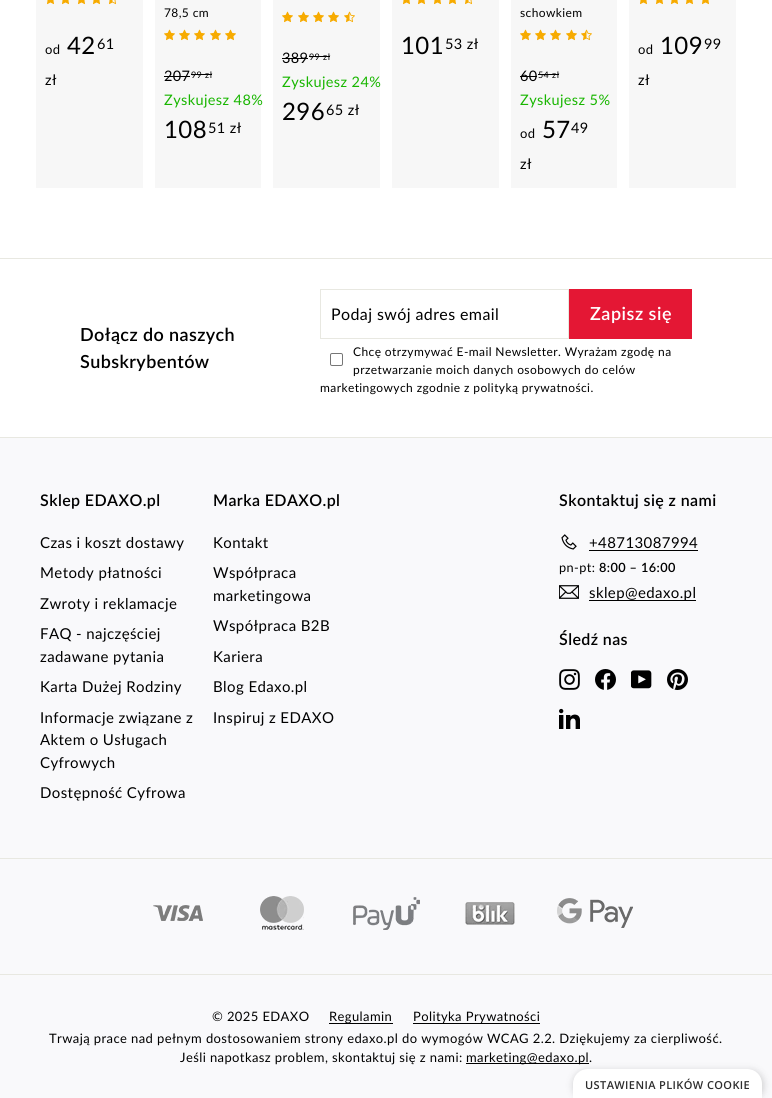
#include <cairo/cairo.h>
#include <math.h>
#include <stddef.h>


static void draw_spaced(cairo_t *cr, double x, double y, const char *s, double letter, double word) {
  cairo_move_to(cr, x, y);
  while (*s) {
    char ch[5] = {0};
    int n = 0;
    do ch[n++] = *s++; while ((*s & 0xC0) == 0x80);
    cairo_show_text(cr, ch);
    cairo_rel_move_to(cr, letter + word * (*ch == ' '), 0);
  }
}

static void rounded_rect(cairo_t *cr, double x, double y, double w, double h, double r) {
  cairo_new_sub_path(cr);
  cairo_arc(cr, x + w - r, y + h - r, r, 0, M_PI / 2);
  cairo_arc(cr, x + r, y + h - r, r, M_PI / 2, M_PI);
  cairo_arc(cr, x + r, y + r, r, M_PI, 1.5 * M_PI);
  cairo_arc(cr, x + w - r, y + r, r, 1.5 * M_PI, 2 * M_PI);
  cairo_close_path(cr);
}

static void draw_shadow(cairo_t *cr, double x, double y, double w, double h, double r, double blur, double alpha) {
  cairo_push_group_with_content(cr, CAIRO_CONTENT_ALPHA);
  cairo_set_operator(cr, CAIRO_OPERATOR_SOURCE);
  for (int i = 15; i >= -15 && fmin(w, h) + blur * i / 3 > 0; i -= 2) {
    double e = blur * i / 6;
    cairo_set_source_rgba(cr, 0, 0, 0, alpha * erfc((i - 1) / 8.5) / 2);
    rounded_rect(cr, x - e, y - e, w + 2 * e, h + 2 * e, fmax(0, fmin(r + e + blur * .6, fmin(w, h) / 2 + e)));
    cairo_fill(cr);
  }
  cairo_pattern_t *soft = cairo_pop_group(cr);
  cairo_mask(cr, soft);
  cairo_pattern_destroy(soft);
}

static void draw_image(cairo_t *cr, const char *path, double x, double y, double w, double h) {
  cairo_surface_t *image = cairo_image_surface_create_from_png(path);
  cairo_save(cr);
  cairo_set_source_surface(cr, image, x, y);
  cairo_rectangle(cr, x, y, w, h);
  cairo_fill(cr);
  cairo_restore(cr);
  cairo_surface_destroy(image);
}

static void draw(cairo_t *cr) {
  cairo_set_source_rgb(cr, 1, 1, 1);
  cairo_paint(cr);
  cairo_set_source_rgb(cr, 247 / 255.0, 247 / 255.0, 247 / 255.0);
  cairo_rectangle(cr, 629, 0, 107, 188);
  cairo_fill(cr);
  cairo_rectangle(cr, 511, 0, 106, 188);
  cairo_fill(cr);
  cairo_rectangle(cr, 392, 0, 107, 188);
  cairo_fill(cr);
  cairo_rectangle(cr, 273, 0, 107, 188);
  cairo_fill(cr);
  cairo_rectangle(cr, 155, 0, 106, 188);
  cairo_fill(cr);
  cairo_rectangle(cr, 36, 0, 107, 188);
  cairo_fill(cr);
  draw_image(cr, "images/1.png", 47, 0, 7, 5);
  draw_image(cr, "images/1.png", 62, 0, 7, 5);
  draw_image(cr, "images/1.png", 78, 0, 7, 5);
  draw_image(cr, "images/1.png", 93, 0, 7, 5);
  draw_image(cr, "images/2.png", 109, 0, 7, 5);
  draw_image(cr, "images/3.png", 164, 29, 11, 12);
  draw_image(cr, "images/3.png", 179, 29, 11, 12);
  draw_image(cr, "images/3.png", 194, 29, 11, 12);
  draw_image(cr, "images/3.png", 210, 29, 11, 12);
  draw_image(cr, "images/3.png", 225, 29, 11, 12);
  cairo_set_source_rgb(cr, 0, 0, 0);
  cairo_rectangle(cr, 164, 76, 26, 1);
  cairo_fill(cr);
  cairo_rectangle(cr, 191, 74, 21, 1);
  cairo_fill(cr);
  draw_image(cr, "images/3.png", 282, 11, 11, 12);
  draw_image(cr, "images/3.png", 298, 11, 11, 12);
  draw_image(cr, "images/3.png", 313, 11, 11, 12);
  draw_image(cr, "images/3.png", 328, 11, 11, 12);
  draw_image(cr, "images/4.png", 344, 11, 11, 12);
  cairo_rectangle(cr, 282, 58, 26, 1);
  cairo_fill(cr);
  cairo_rectangle(cr, 309, 56, 21, 1);
  cairo_fill(cr);
  draw_image(cr, "images/1.png", 403, 0, 7, 5);
  draw_image(cr, "images/1.png", 418, 0, 7, 5);
  draw_image(cr, "images/1.png", 434, 0, 7, 5);
  draw_image(cr, "images/1.png", 449, 0, 7, 5);
  draw_image(cr, "images/2.png", 465, 0, 7, 5);
  draw_image(cr, "images/3.png", 520, 29, 11, 12);
  draw_image(cr, "images/3.png", 535, 29, 11, 12);
  draw_image(cr, "images/3.png", 550, 29, 11, 12);
  draw_image(cr, "images/3.png", 566, 29, 11, 12);
  draw_image(cr, "images/4.png", 581, 29, 11, 12);
  cairo_rectangle(cr, 520, 76, 17, 1);
  cairo_fill(cr);
  cairo_rectangle(cr, 538, 74, 21, 1);
  cairo_fill(cr);
  draw_image(cr, "images/1.png", 640, 0, 7, 5);
  draw_image(cr, "images/1.png", 656, 0, 7, 5);
  draw_image(cr, "images/1.png", 671, 0, 7, 5);
  draw_image(cr, "images/1.png", 686, 0, 7, 5);
  draw_image(cr, "images/1.png", 702, 0, 7, 5);
  cairo_set_source_rgb(cr, 232 / 255.0, 232 / 255.0, 225 / 255.0);
  cairo_rectangle(cr, 0, 258, 772, 1);
  cairo_fill(cr);
  cairo_rectangle(cr, 320.5, 289.5, 248, 49);
  cairo_set_line_width(cr, 1);
  cairo_stroke(cr);
  cairo_set_source_rgb(cr, 228 / 255.0, 23 / 255.0, 52 / 255.0);
  cairo_rectangle(cr, 569, 289, 123, 50);
  cairo_fill(cr);
  rounded_rect(cr, 330.5, 353.5, 12, 12, 1.5);
  cairo_set_source_rgb(cr, 118 / 255.0, 118 / 255.0, 118 / 255.0);
  cairo_stroke(cr);
  cairo_set_source_rgb(cr, 249 / 255.0, 249 / 255.0, 251 / 255.0);
  cairo_rectangle(cr, 0, 438, 772, 660);
  cairo_fill(cr);
  cairo_set_source_rgb(cr, 232 / 255.0, 232 / 255.0, 225 / 255.0);
  cairo_rectangle(cr, 0, 437, 772, 1);
  cairo_fill(cr);
  draw_image(cr, "images/5.png", 561, 534, 16, 16);
  cairo_set_source_rgb(cr, 0, 0, 0);
  cairo_rectangle(cr, 589, 550, 109, 1);
  cairo_fill(cr);
  draw_image(cr, "images/6.png", 559, 585, 20, 14);
  cairo_rectangle(cr, 589, 600, 107, 1);
  cairo_fill(cr);
  draw_image(cr, "images/7.png", 559, 669, 21, 21);
  draw_image(cr, "images/8.png", 595, 669, 21, 21);
  draw_image(cr, "images/9.png", 631, 670, 21, 19);
  draw_image(cr, "images/10.png", 667, 669, 21, 21);
  draw_image(cr, "images/11.png", 559, 708, 21, 21);
  cairo_set_source_rgb(cr, 232 / 255.0, 232 / 255.0, 225 / 255.0);
  cairo_rectangle(cr, 0, 858, 772, 1);
  cairo_fill(cr);
  draw_image(cr, "images/12.png", 153, 905, 50, 16);
  draw_image(cr, "images/13.png", 260, 896, 44, 34);
  draw_image(cr, "images/14.png", 353, 897, 67, 33);
  draw_image(cr, "images/15.png", 465, 902, 50, 23);
  draw_image(cr, "images/16.png", 557, 898, 76, 30);
  cairo_rectangle(cr, 0, 974, 772, 1);
  cairo_fill(cr);
  cairo_set_source_rgb(cr, 0, 0, 0);
  cairo_rectangle(cr, 329, 1023, 64, 1);
  cairo_fill(cr);
  cairo_rectangle(cr, 413, 1023, 127, 1);
  cairo_fill(cr);
  cairo_rectangle(cr, 466, 1063, 123, 1);
  cairo_fill(cr);
  cairo_set_source_rgb(cr, 0, 0, 0);
  draw_shadow(cr, 574, 1071, 189, 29, 15, 4, 0.2);
  cairo_set_source_rgb(cr, 1, 1, 1);
  cairo_new_path(cr);
  cairo_move_to(cr, 588, 1069);
  cairo_line_to(cr, 747, 1069);
  cairo_curve_to(cr, 755.5, 1069, 762, 1075.5, 762, 1084);
  cairo_line_to(cr, 762, 1098);
  cairo_line_to(cr, 573, 1098);
  cairo_line_to(cr, 573, 1084);
  cairo_curve_to(cr, 573, 1075.5, 579.5, 1069, 588, 1069);
  cairo_close_path(cr);
  cairo_fill(cr);
  cairo_select_font_face(cr, "Lato", CAIRO_FONT_SLANT_NORMAL, CAIRO_FONT_WEIGHT_NORMAL);
  cairo_set_font_size(cr, 13);
  cairo_set_source_rgb(cr, 0, 0, 0);
  draw_spaced(cr, 45, 54, "od", 0.4, 0);
  cairo_set_font_size(cr, 24);
  draw_spaced(cr, 67, 54, "42", 0.4, 0);
  cairo_set_font_size(cr, 14.5);
  draw_spaced(cr, 97, 49, "61", 0.4, 0);
  draw_spaced(cr, 45, 85, "zł", 0.4, 0);
  cairo_set_font_size(cr, 12);
  draw_spaced(cr, 164, 17, "78,5 cm", 0.4, 0);
  cairo_set_font_size(cr, 14.5);
  draw_spaced(cr, 164, 81, "207", 0.4, 0);
  cairo_set_font_size(cr, 9);
  draw_spaced(cr, 191, 78, "99 zł", 0.4, 0);
  cairo_set_font_size(cr, 14.5);
  cairo_set_source_rgb(cr, 24 / 255.0, 182 / 255.0, 0);
  draw_spaced(cr, 164, 105, "Zyskujesz 48%", 0.4, 0);
  cairo_set_font_size(cr, 24);
  cairo_set_source_rgb(cr, 0, 0, 0);
  draw_spaced(cr, 164, 138, "108", 0.4, 0);
  cairo_set_font_size(cr, 14.5);
  draw_spaced(cr, 208, 133, "51 zł", 0.4, 0);
  draw_spaced(cr, 282, 63, "389", 0.4, 0);
  cairo_set_font_size(cr, 9);
  draw_spaced(cr, 309, 60, "99 zł", 0.4, 0);
  cairo_set_font_size(cr, 14.5);
  cairo_set_source_rgb(cr, 24 / 255.0, 182 / 255.0, 0);
  draw_spaced(cr, 282, 87, "Zyskujesz 24%", 0.4, 0);
  cairo_set_font_size(cr, 24);
  cairo_set_source_rgb(cr, 0, 0, 0);
  draw_spaced(cr, 282, 120, "296", 0.4, 0);
  cairo_set_font_size(cr, 14.5);
  draw_spaced(cr, 326, 115, "65 zł", 0.4, 0);
  cairo_set_font_size(cr, 24);
  draw_spaced(cr, 401, 54, "101", 0.4, 0);
  cairo_set_font_size(cr, 14.5);
  draw_spaced(cr, 445, 49, "53 zł", 0.4, 0);
  cairo_set_font_size(cr, 12);
  draw_spaced(cr, 520, 17, "schowkiem", 0.4, 0);
  cairo_set_font_size(cr, 14.5);
  draw_spaced(cr, 520, 81, "60", 0.4, 0);
  cairo_set_font_size(cr, 9);
  draw_spaced(cr, 538, 78, "54 zł", 0.4, 0);
  cairo_set_font_size(cr, 14.5);
  cairo_set_source_rgb(cr, 24 / 255.0, 182 / 255.0, 0);
  draw_spaced(cr, 520, 105, "Zyskujesz 5%", 0.4, 0);
  cairo_set_font_size(cr, 13);
  cairo_set_source_rgb(cr, 0, 0, 0);
  draw_spaced(cr, 520, 138, "od", 0.4, 0);
  cairo_set_font_size(cr, 24);
  draw_spaced(cr, 542, 138, "57", 0.4, 0);
  cairo_set_font_size(cr, 14.5);
  draw_spaced(cr, 571, 133, "49", 0.4, 0);
  draw_spaced(cr, 520, 169, "zł", 0.4, 0);
  cairo_set_font_size(cr, 13);
  draw_spaced(cr, 638, 54, "od", 0.4, 0);
  cairo_set_font_size(cr, 24);
  draw_spaced(cr, 660, 54, "109", 0.4, 0);
  cairo_set_font_size(cr, 14.5);
  draw_spaced(cr, 704, 49, "99", 0.4, 0);
  draw_spaced(cr, 638, 85, "zł", 0.4, 0);
  cairo_select_font_face(cr, "Lato SemiBold", CAIRO_FONT_SLANT_NORMAL, CAIRO_FONT_WEIGHT_NORMAL);
  cairo_set_font_size(cr, 18);
  draw_spaced(cr, 80, 341, "Dołącz do naszych", 0.4, 0);
  draw_spaced(cr, 80, 368, "Subskrybentów", 0.4, 0);
  cairo_select_font_face(cr, "Lato", CAIRO_FONT_SLANT_NORMAL, CAIRO_FONT_WEIGHT_NORMAL);
  cairo_set_font_size(cr, 16);
  draw_spaced(cr, 331, 320, "Podaj swój adres email", 0.4, 0);
  cairo_select_font_face(cr, "Lato SemiBold", CAIRO_FONT_SLANT_NORMAL, CAIRO_FONT_WEIGHT_NORMAL);
  cairo_set_font_size(cr, 18);
  cairo_set_source_rgb(cr, 1, 1, 1);
  draw_spaced(cr, 590, 320, "Zapisz się", 0.5, 0);
  cairo_select_font_face(cr, "Lato", CAIRO_FONT_SLANT_NORMAL, CAIRO_FONT_WEIGHT_NORMAL);
  cairo_set_font_size(cr, 12);
  cairo_set_source_rgb(cr, 0, 0, 0);
  draw_spaced(cr, 353, 356, "Chcę otrzymywać E-mail Newsletter. Wyrażam zgodę na", 0.4, 0);
  draw_spaced(cr, 353, 374, "przetwarzanie moich danych osobowych do celów", 0.4, 0);
  draw_spaced(cr, 320, 392, "marketingowych zgodnie z polityką prywatności.", 0.4, 0);
  cairo_select_font_face(cr, "Lato SemiBold", CAIRO_FONT_SLANT_NORMAL, CAIRO_FONT_WEIGHT_NORMAL);
  cairo_set_font_size(cr, 16);
  draw_spaced(cr, 40, 506, "Sklep EDAXO.pl", 0.4, 0);
  cairo_select_font_face(cr, "Lato", CAIRO_FONT_SLANT_NORMAL, CAIRO_FONT_WEIGHT_NORMAL);
  cairo_set_font_size(cr, 15);
  draw_spaced(cr, 40, 548, "Czas i koszt dostawy", 0.4, 0);
  draw_spaced(cr, 40, 578, "Metody płatności", 0.4, 0);
  draw_spaced(cr, 40, 609, "Zwroty i reklamacje", 0.4, 0);
  draw_spaced(cr, 40, 639, "FAQ - najczęściej", 0.4, 0);
  draw_spaced(cr, 40, 662, "zadawane pytania", 0.4, 0);
  draw_spaced(cr, 40, 692, "Karta Dużej Rodziny", 0.4, 0);
  draw_spaced(cr, 40, 723, "Informacje związane z", 0.4, 0);
  draw_spaced(cr, 40, 745, "Aktem o Usługach", 0.4, 0);
  draw_spaced(cr, 40, 768, "Cyfrowych", 0.4, 0);
  draw_spaced(cr, 40, 798, "Dostępność Cyfrowa", 0.4, 0);
  cairo_select_font_face(cr, "Lato SemiBold", CAIRO_FONT_SLANT_NORMAL, CAIRO_FONT_WEIGHT_NORMAL);
  cairo_set_font_size(cr, 16);
  draw_spaced(cr, 213, 506, "Marka EDAXO.pl", 0.4, 0);
  cairo_select_font_face(cr, "Lato", CAIRO_FONT_SLANT_NORMAL, CAIRO_FONT_WEIGHT_NORMAL);
  cairo_set_font_size(cr, 15);
  draw_spaced(cr, 213, 548, "Kontakt", 0.4, 0);
  draw_spaced(cr, 213, 578, "Współpraca", 0.4, 0);
  draw_spaced(cr, 213, 601, "marketingowa", 0.4, 0);
  draw_spaced(cr, 213, 631, "Współpraca B2B", 0.4, 0);
  draw_spaced(cr, 213, 662, "Kariera", 0.4, 0);
  draw_spaced(cr, 213, 692, "Blog Edaxo.pl", 0.4, 0);
  draw_spaced(cr, 213, 723, "Inspiruj z EDAXO", 0.4, 0);
  cairo_select_font_face(cr, "Lato SemiBold", CAIRO_FONT_SLANT_NORMAL, CAIRO_FONT_WEIGHT_NORMAL);
  cairo_set_font_size(cr, 16);
  draw_spaced(cr, 559, 506, "Skontaktuj się z nami", 0.4, 0);
  cairo_select_font_face(cr, "Lato", CAIRO_FONT_SLANT_NORMAL, CAIRO_FONT_WEIGHT_NORMAL);
  cairo_set_font_size(cr, 15);
  draw_spaced(cr, 589, 548, "+48713087994", 0.4, 0);
  cairo_set_font_size(cr, 12.75);
  draw_spaced(cr, 559, 572, "pn-pt:", 0.4, 0);
  cairo_select_font_face(cr, "Lato SemiBold", CAIRO_FONT_SLANT_NORMAL, CAIRO_FONT_WEIGHT_NORMAL);
  draw_spaced(cr, 599, 572, "8:00 – 16:00", 0.4, 0);
  cairo_select_font_face(cr, "Lato", CAIRO_FONT_SLANT_NORMAL, CAIRO_FONT_WEIGHT_NORMAL);
  cairo_set_font_size(cr, 15);
  draw_spaced(cr, 589, 598, "sklep@edaxo.pl", 0.4, 0);
  cairo_select_font_face(cr, "Lato SemiBold", CAIRO_FONT_SLANT_NORMAL, CAIRO_FONT_WEIGHT_NORMAL);
  cairo_set_font_size(cr, 16);
  draw_spaced(cr, 559, 645, "Śledź nas", 0.4, 0);
  cairo_select_font_face(cr, "Lato", CAIRO_FONT_SLANT_NORMAL, CAIRO_FONT_WEIGHT_NORMAL);
  cairo_set_font_size(cr, 13);
  draw_spaced(cr, 212, 1021, "© 2025 EDAXO", 0.4, 0);
  draw_spaced(cr, 329, 1021, "Regulamin", 0.4, 0);
  draw_spaced(cr, 413, 1021, "Polityka Prywatności", 0.4, 0);
  draw_spaced(cr, 49, 1043, "Trwają prace nad pełnym dostosowaniem strony edaxo.pl do wymogów WCAG 2.2. Dziękujemy za cierpliwość.", 0.4, 0);
  draw_spaced(cr, 180, 1062, "Jeśli napotkasz problem, skontaktuj się z nami:", 0.4, 0);
  draw_spaced(cr, 466, 1062, "marketing@edaxo.pl.", 0.4, 0);
  cairo_select_font_face(cr, "Open Sans SemiBold", CAIRO_FONT_SLANT_NORMAL, CAIRO_FONT_WEIGHT_NORMAL);
  cairo_set_font_size(cr, 11);
  cairo_set_source_rgb(cr, 45 / 255.0, 45 / 255.0, 45 / 255.0);
  draw_spaced(cr, 585, 1089, "USTAWIENIA PLIKÓW COOKIE", 0.4, 0);
}

int main(void) {
  cairo_surface_t *surface = cairo_image_surface_create(CAIRO_FORMAT_RGB24, 772, 1098);
  cairo_t *cr = cairo_create(surface);
  cairo_font_options_t *options = cairo_font_options_create();
  cairo_font_options_set_hint_metrics(options, CAIRO_HINT_METRICS_OFF);
  cairo_font_options_set_hint_style(options, CAIRO_HINT_STYLE_NONE);
  cairo_set_font_options(cr, options);
  cairo_set_miter_limit(cr, 4);
  draw(cr);
  cairo_surface_write_to_png(surface, "out.png");
  cairo_font_options_destroy(options);
  cairo_destroy(cr);
  cairo_surface_destroy(surface);
  return 0;
}
